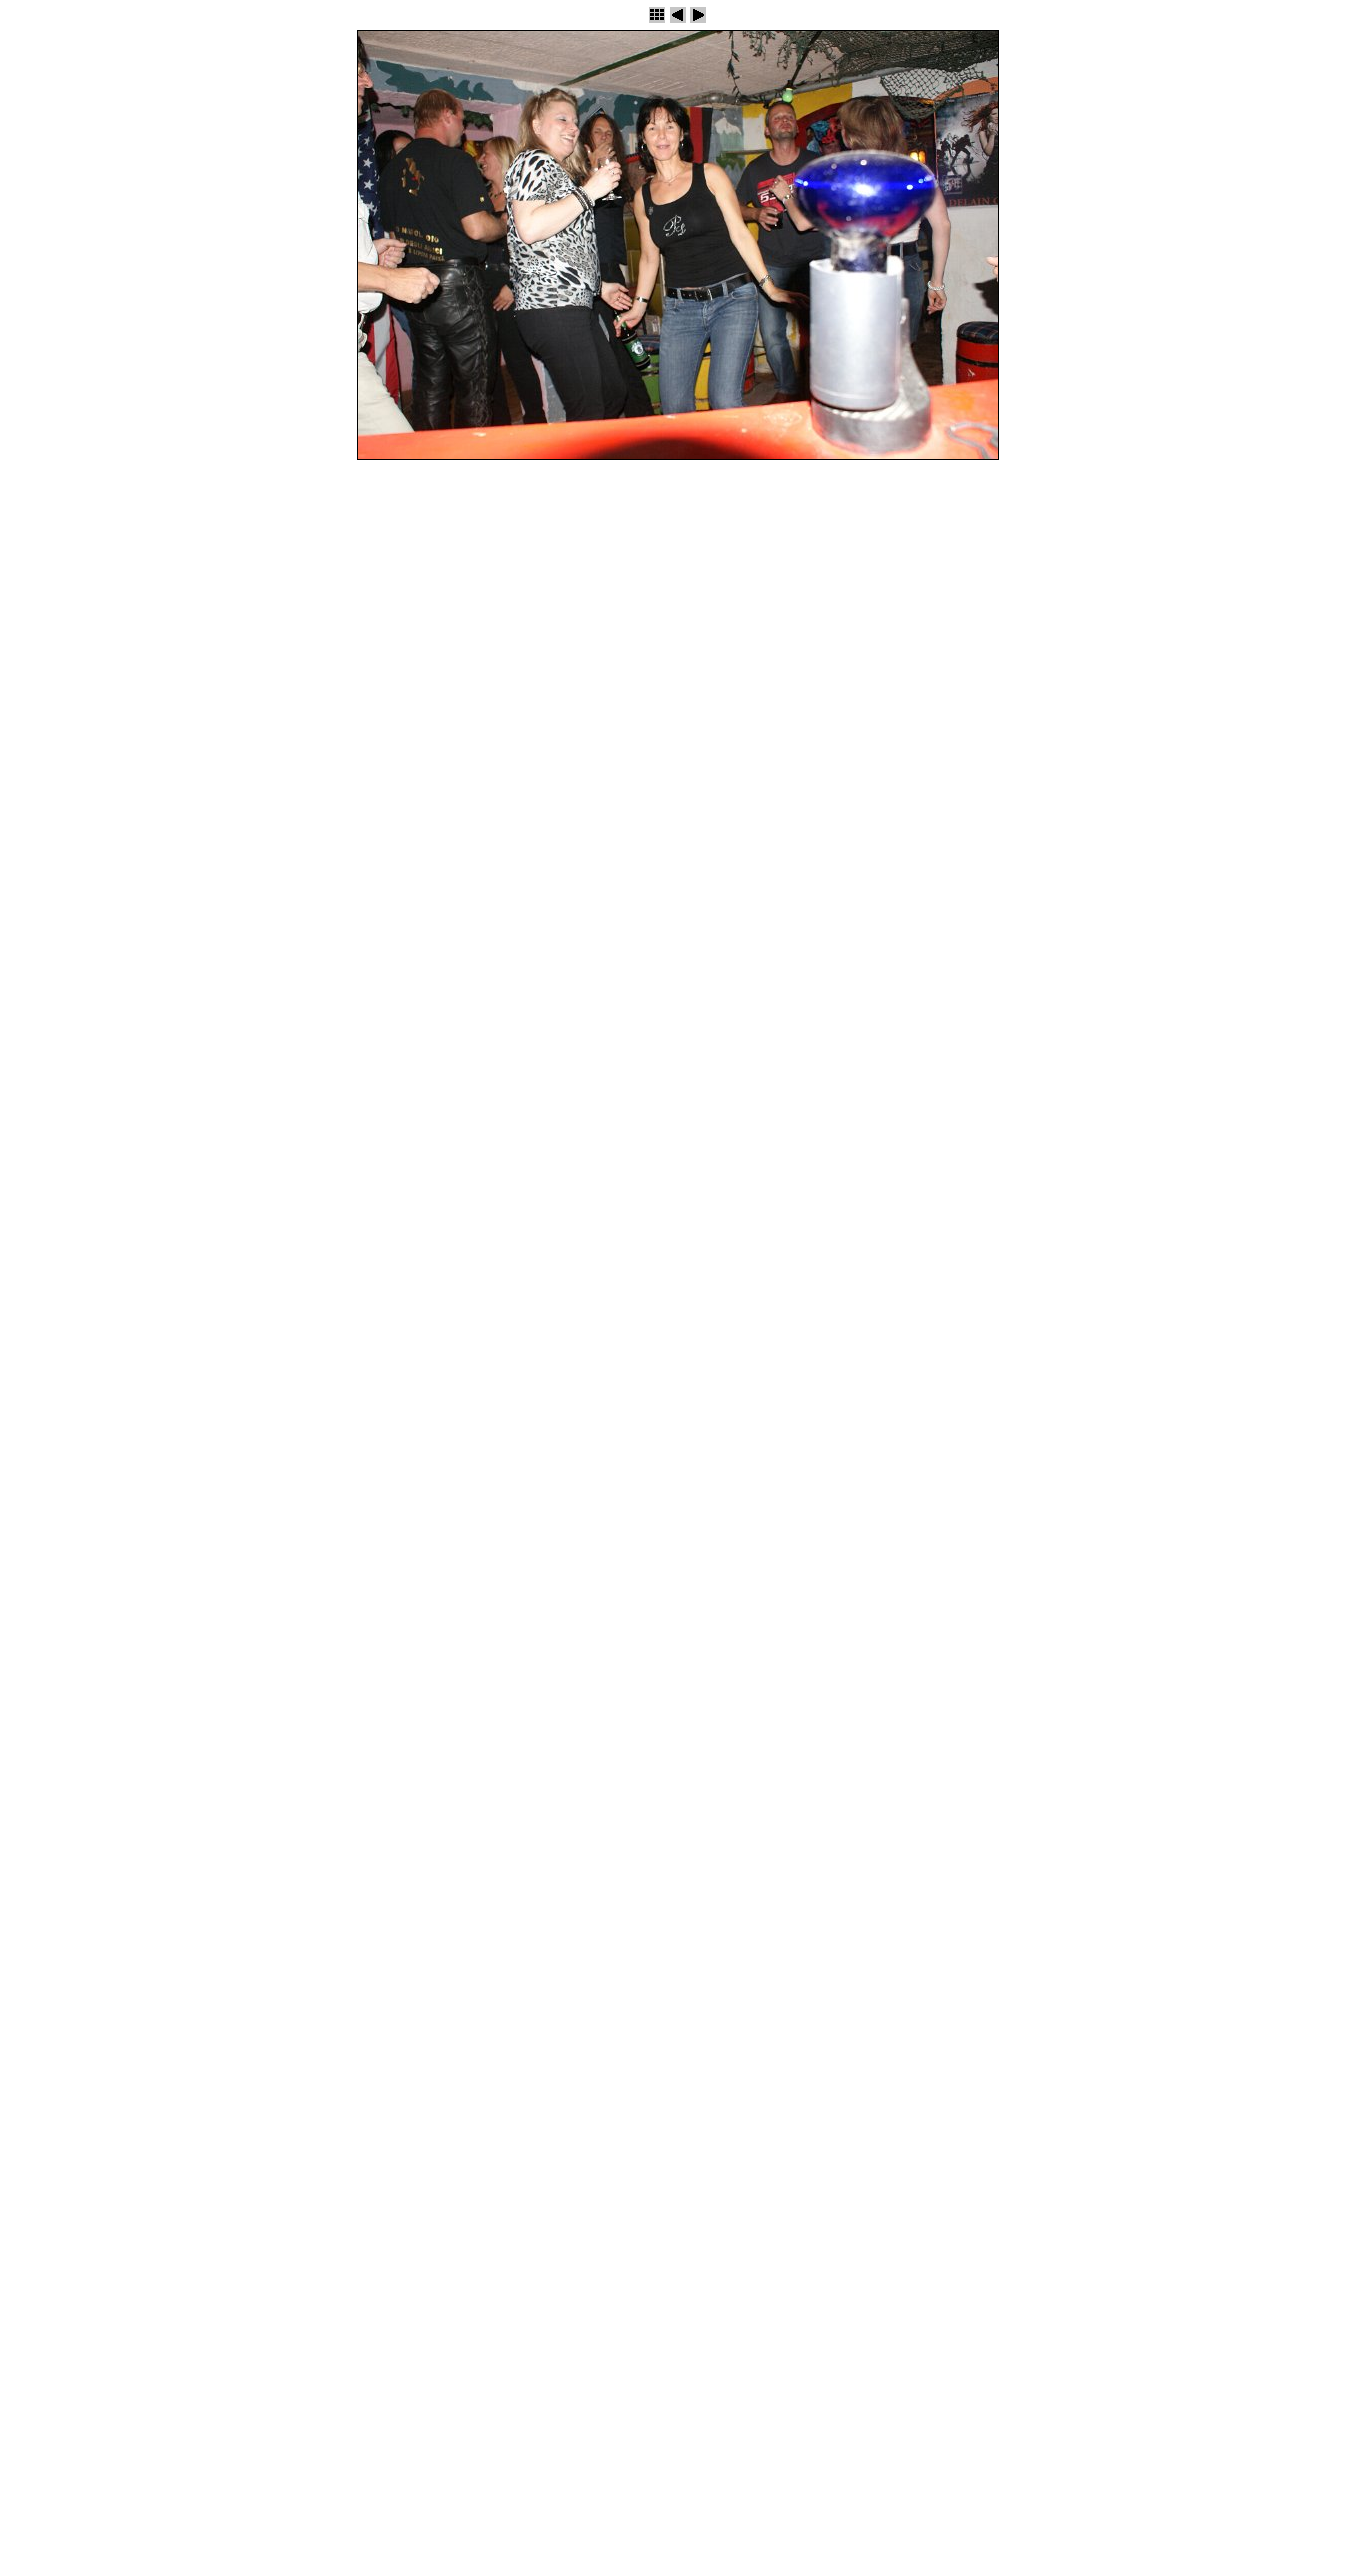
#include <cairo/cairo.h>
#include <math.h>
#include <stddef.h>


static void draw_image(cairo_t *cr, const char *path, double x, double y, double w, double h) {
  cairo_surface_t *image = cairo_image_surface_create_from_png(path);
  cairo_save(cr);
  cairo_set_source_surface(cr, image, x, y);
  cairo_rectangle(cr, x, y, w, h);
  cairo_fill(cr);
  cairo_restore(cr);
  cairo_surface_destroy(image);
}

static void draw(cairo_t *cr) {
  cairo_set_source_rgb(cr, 1, 1, 1);
  cairo_paint(cr);
  draw_image(cr, "images/1.png", 649, 7, 16, 16);
  draw_image(cr, "images/2.png", 670, 7, 16, 16);
  draw_image(cr, "images/3.png", 690, 7, 16, 16);
  cairo_rectangle(cr, 357.5, 30.5, 641, 429);
  cairo_set_source_rgb(cr, 0, 0, 0);
  cairo_set_line_width(cr, 1);
  cairo_stroke(cr);
  draw_image(cr, "images/4.png", 358, 31, 640, 428);
}

int main(void) {
  cairo_surface_t *surface = cairo_image_surface_create(CAIRO_FORMAT_RGB24, 1355, 2557);
  cairo_t *cr = cairo_create(surface);
  cairo_font_options_t *options = cairo_font_options_create();
  cairo_font_options_set_hint_metrics(options, CAIRO_HINT_METRICS_OFF);
  cairo_font_options_set_hint_style(options, CAIRO_HINT_STYLE_NONE);
  cairo_set_font_options(cr, options);
  cairo_set_miter_limit(cr, 4);
  draw(cr);
  cairo_surface_write_to_png(surface, "out.png");
  cairo_font_options_destroy(options);
  cairo_destroy(cr);
  cairo_surface_destroy(surface);
  return 0;
}
